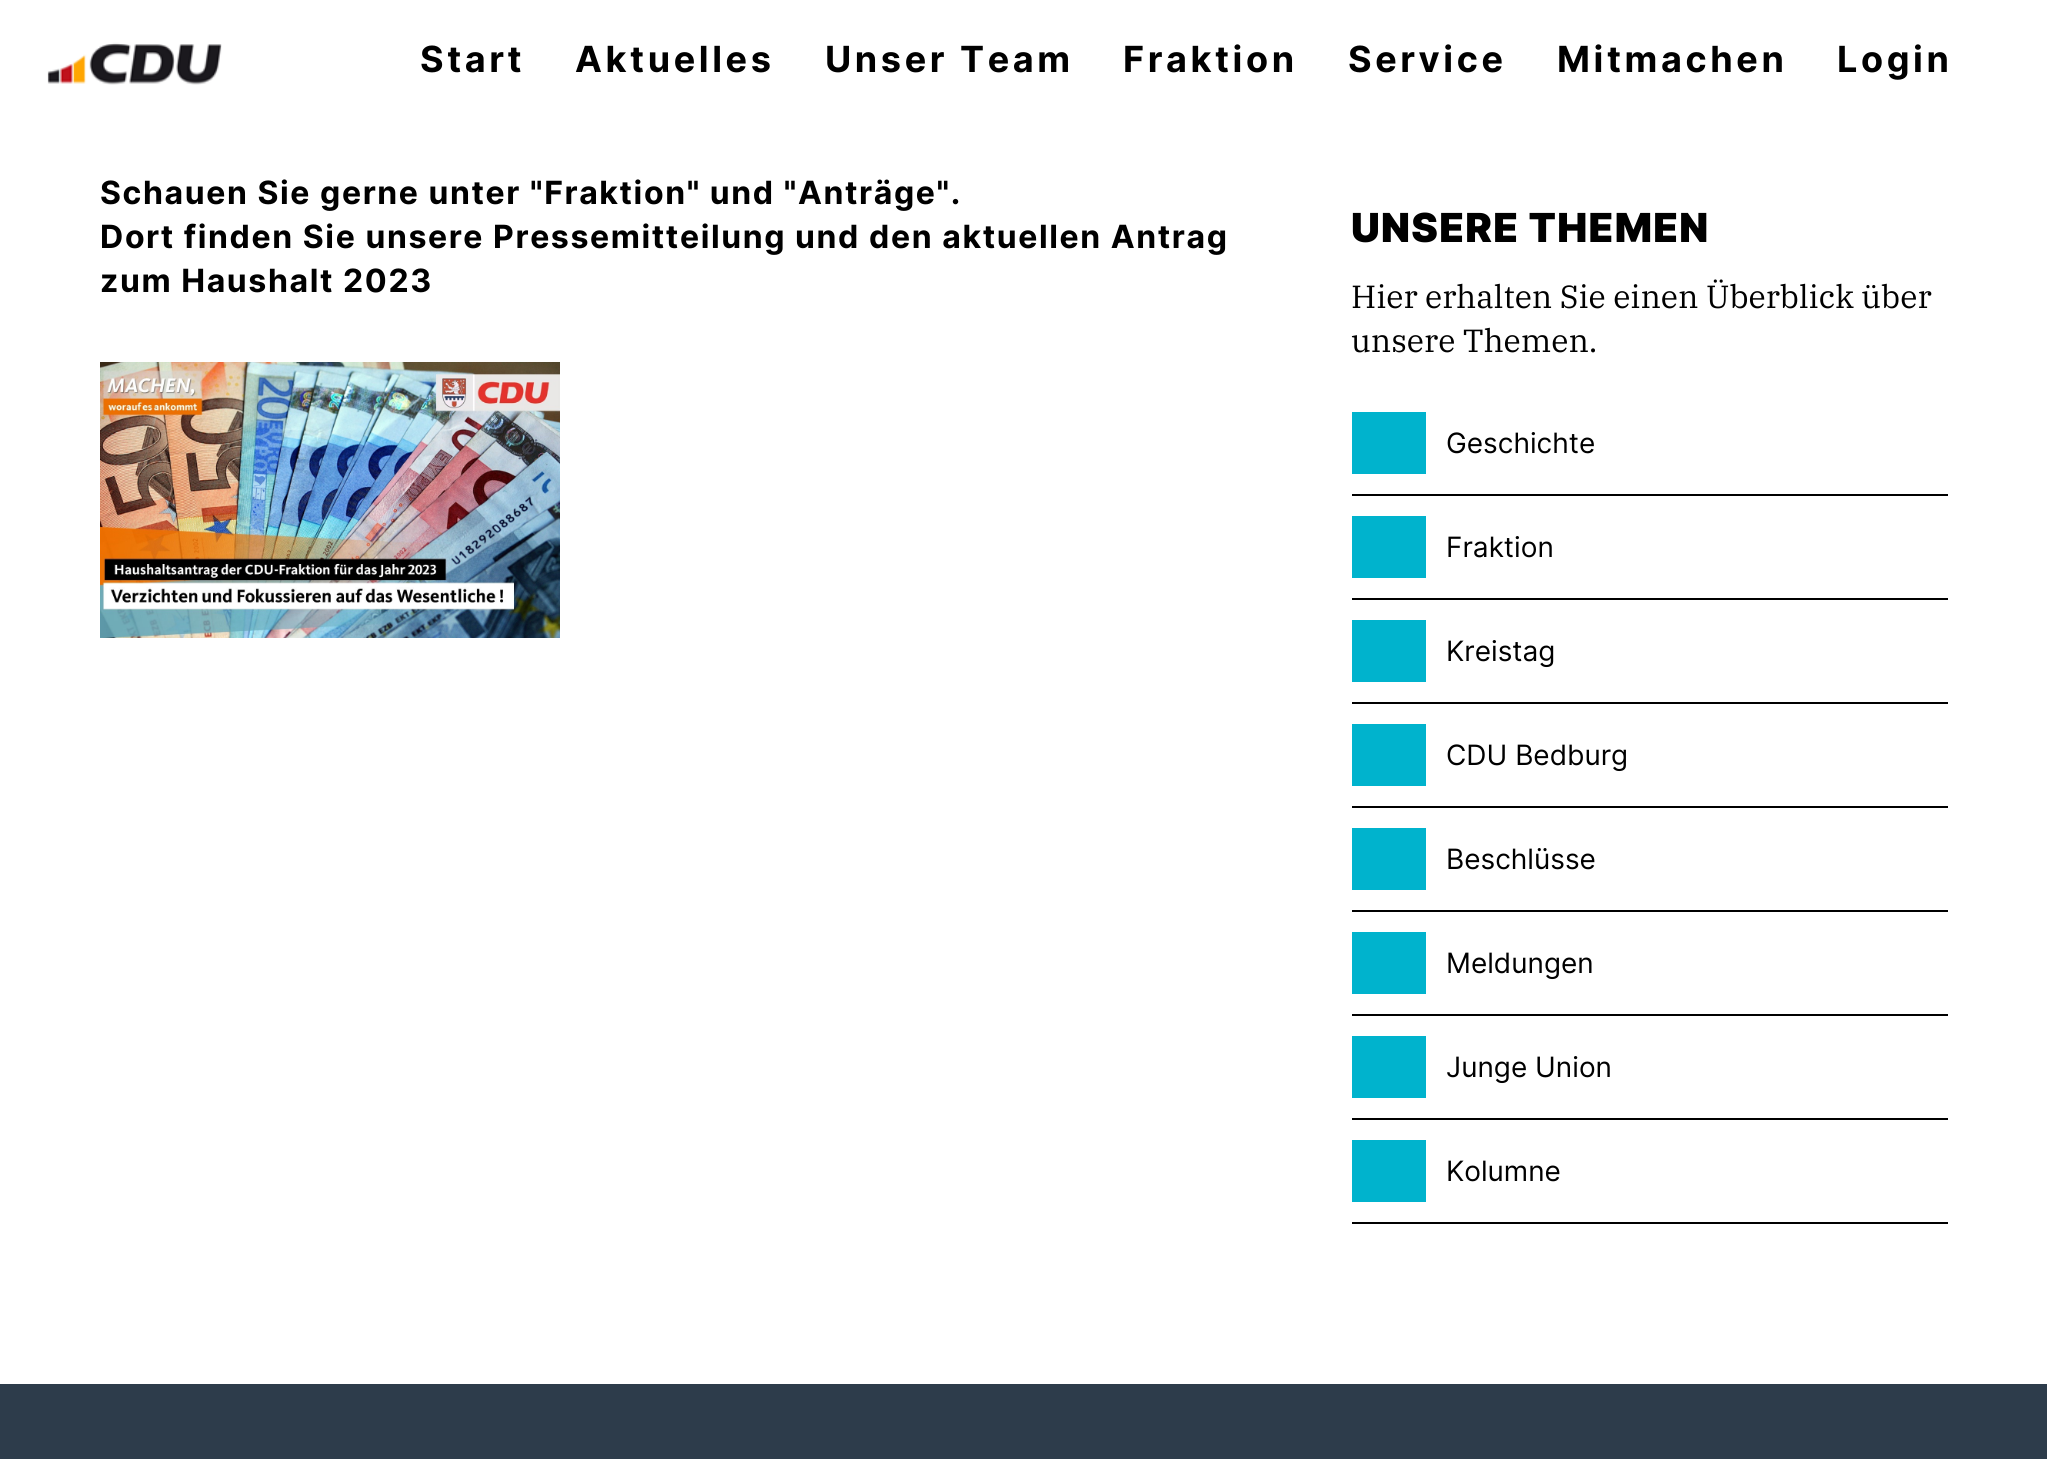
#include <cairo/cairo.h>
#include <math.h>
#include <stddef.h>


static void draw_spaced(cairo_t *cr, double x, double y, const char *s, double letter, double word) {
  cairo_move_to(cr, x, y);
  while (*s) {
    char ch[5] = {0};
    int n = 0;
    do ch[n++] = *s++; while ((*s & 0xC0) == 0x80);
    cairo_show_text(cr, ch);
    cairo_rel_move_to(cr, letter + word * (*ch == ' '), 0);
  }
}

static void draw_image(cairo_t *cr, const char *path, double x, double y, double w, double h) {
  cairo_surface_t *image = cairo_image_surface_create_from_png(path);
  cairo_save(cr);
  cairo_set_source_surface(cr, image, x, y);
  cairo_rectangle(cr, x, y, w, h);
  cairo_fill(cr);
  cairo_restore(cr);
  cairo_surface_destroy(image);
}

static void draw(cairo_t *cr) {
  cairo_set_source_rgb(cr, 1, 1, 1);
  cairo_paint(cr);
  draw_image(cr, "images/1.png", 47, 42, 175, 43);
  draw_image(cr, "images/2.png", 100, 362, 460, 276);
  cairo_set_source_rgb(cr, 0, 0, 0);
  cairo_rectangle(cr, 1352, 494, 596, 2);
  cairo_fill(cr);
  cairo_set_source_rgb(cr, 0, 179 / 255.0, 205 / 255.0);
  cairo_rectangle(cr, 1352, 412, 74, 62);
  cairo_fill(cr);
  cairo_set_source_rgb(cr, 0, 0, 0);
  cairo_rectangle(cr, 1352, 598, 596, 2);
  cairo_fill(cr);
  cairo_set_source_rgb(cr, 0, 179 / 255.0, 205 / 255.0);
  cairo_rectangle(cr, 1352, 516, 74, 62);
  cairo_fill(cr);
  cairo_set_source_rgb(cr, 0, 0, 0);
  cairo_rectangle(cr, 1352, 702, 596, 2);
  cairo_fill(cr);
  cairo_set_source_rgb(cr, 0, 179 / 255.0, 205 / 255.0);
  cairo_rectangle(cr, 1352, 620, 74, 62);
  cairo_fill(cr);
  cairo_set_source_rgb(cr, 0, 0, 0);
  cairo_rectangle(cr, 1352, 806, 596, 2);
  cairo_fill(cr);
  cairo_set_source_rgb(cr, 0, 179 / 255.0, 205 / 255.0);
  cairo_rectangle(cr, 1352, 724, 74, 62);
  cairo_fill(cr);
  cairo_set_source_rgb(cr, 0, 0, 0);
  cairo_rectangle(cr, 1352, 910, 596, 2);
  cairo_fill(cr);
  cairo_set_source_rgb(cr, 0, 179 / 255.0, 205 / 255.0);
  cairo_rectangle(cr, 1352, 828, 74, 62);
  cairo_fill(cr);
  cairo_set_source_rgb(cr, 0, 0, 0);
  cairo_rectangle(cr, 1352, 1014, 596, 2);
  cairo_fill(cr);
  cairo_set_source_rgb(cr, 0, 179 / 255.0, 205 / 255.0);
  cairo_rectangle(cr, 1352, 932, 74, 62);
  cairo_fill(cr);
  cairo_set_source_rgb(cr, 0, 0, 0);
  cairo_rectangle(cr, 1352, 1118, 596, 2);
  cairo_fill(cr);
  cairo_set_source_rgb(cr, 0, 179 / 255.0, 205 / 255.0);
  cairo_rectangle(cr, 1352, 1036, 74, 62);
  cairo_fill(cr);
  cairo_set_source_rgb(cr, 0, 0, 0);
  cairo_rectangle(cr, 1352, 1222, 596, 2);
  cairo_fill(cr);
  cairo_set_source_rgb(cr, 0, 179 / 255.0, 205 / 255.0);
  cairo_rectangle(cr, 1352, 1140, 74, 62);
  cairo_fill(cr);
  cairo_set_source_rgb(cr, 45 / 255.0, 60 / 255.0, 75 / 255.0);
  cairo_rectangle(cr, 0, 1384, 2047, 75);
  cairo_fill(cr);
  cairo_select_font_face(cr, "Inter", CAIRO_FONT_SLANT_NORMAL, CAIRO_FONT_WEIGHT_BOLD);
  cairo_set_font_size(cr, 36);
  cairo_set_source_rgb(cr, 0, 0, 0);
  draw_spaced(cr, 420, 72, "Start", 3.6, 0);
  draw_spaced(cr, 575, 72, "Aktuelles", 3.6, 0);
  draw_spaced(cr, 825, 72, "Unser Team", 3.6, 0);
  draw_spaced(cr, 1123, 72, "Fraktion", 3.6, 0);
  draw_spaced(cr, 1348, 72, "Service", 3.6, 0);
  draw_spaced(cr, 1557, 72, "Mitmachen", 3.6, 0);
  draw_spaced(cr, 1837, 72, "Login", 3.6, 0);
  cairo_set_font_size(cr, 32);
  draw_spaced(cr, 100, 204, "Schauen Sie gerne unter \"Fraktion\" und \"Anträge\".", 1.6, 0);
  draw_spaced(cr, 100, 248, "Dort finden Sie unsere Pressemitteilung und den aktuellen Antrag", 1.6, 0);
  draw_spaced(cr, 100, 292, "zum Haushalt 2023", 1.6, 0);
  cairo_select_font_face(cr, "Inter Black", CAIRO_FONT_SLANT_NORMAL, CAIRO_FONT_WEIGHT_NORMAL);
  cairo_set_font_size(cr, 40);
  draw_spaced(cr, 1351, 242, "UNSERE THEMEN", 1.25, 0);
  cairo_select_font_face(cr, "IBM Plex Serif", CAIRO_FONT_SLANT_NORMAL, CAIRO_FONT_WEIGHT_NORMAL);
  cairo_set_font_size(cr, 32);
  cairo_move_to(cr, 1351, 308);
  cairo_show_text(cr, "Hier erhalten Sie einen Überblick über");
  cairo_move_to(cr, 1351, 352);
  cairo_show_text(cr, "unsere Themen.");
  cairo_select_font_face(cr, "Inter", CAIRO_FONT_SLANT_NORMAL, CAIRO_FONT_WEIGHT_NORMAL);
  cairo_set_font_size(cr, 28);
  cairo_move_to(cr, 1446, 453);
  cairo_show_text(cr, "Geschichte");
  cairo_move_to(cr, 1446, 557);
  cairo_show_text(cr, "Fraktion");
  cairo_move_to(cr, 1446, 661);
  cairo_show_text(cr, "Kreistag");
  cairo_move_to(cr, 1446, 765);
  cairo_show_text(cr, "CDU Bedburg");
  cairo_move_to(cr, 1446, 869);
  cairo_show_text(cr, "Beschlüsse");
  cairo_move_to(cr, 1446, 973);
  cairo_show_text(cr, "Meldungen");
  cairo_move_to(cr, 1446, 1077);
  cairo_show_text(cr, "Junge Union");
  cairo_move_to(cr, 1446, 1181);
  cairo_show_text(cr, "Kolumne");
}

int main(void) {
  cairo_surface_t *surface = cairo_image_surface_create(CAIRO_FORMAT_RGB24, 2047, 1459);
  cairo_t *cr = cairo_create(surface);
  cairo_font_options_t *options = cairo_font_options_create();
  cairo_font_options_set_hint_metrics(options, CAIRO_HINT_METRICS_OFF);
  cairo_font_options_set_hint_style(options, CAIRO_HINT_STYLE_NONE);
  cairo_set_font_options(cr, options);
  cairo_set_miter_limit(cr, 4);
  draw(cr);
  cairo_surface_write_to_png(surface, "out.png");
  cairo_font_options_destroy(options);
  cairo_destroy(cr);
  cairo_surface_destroy(surface);
  return 0;
}
